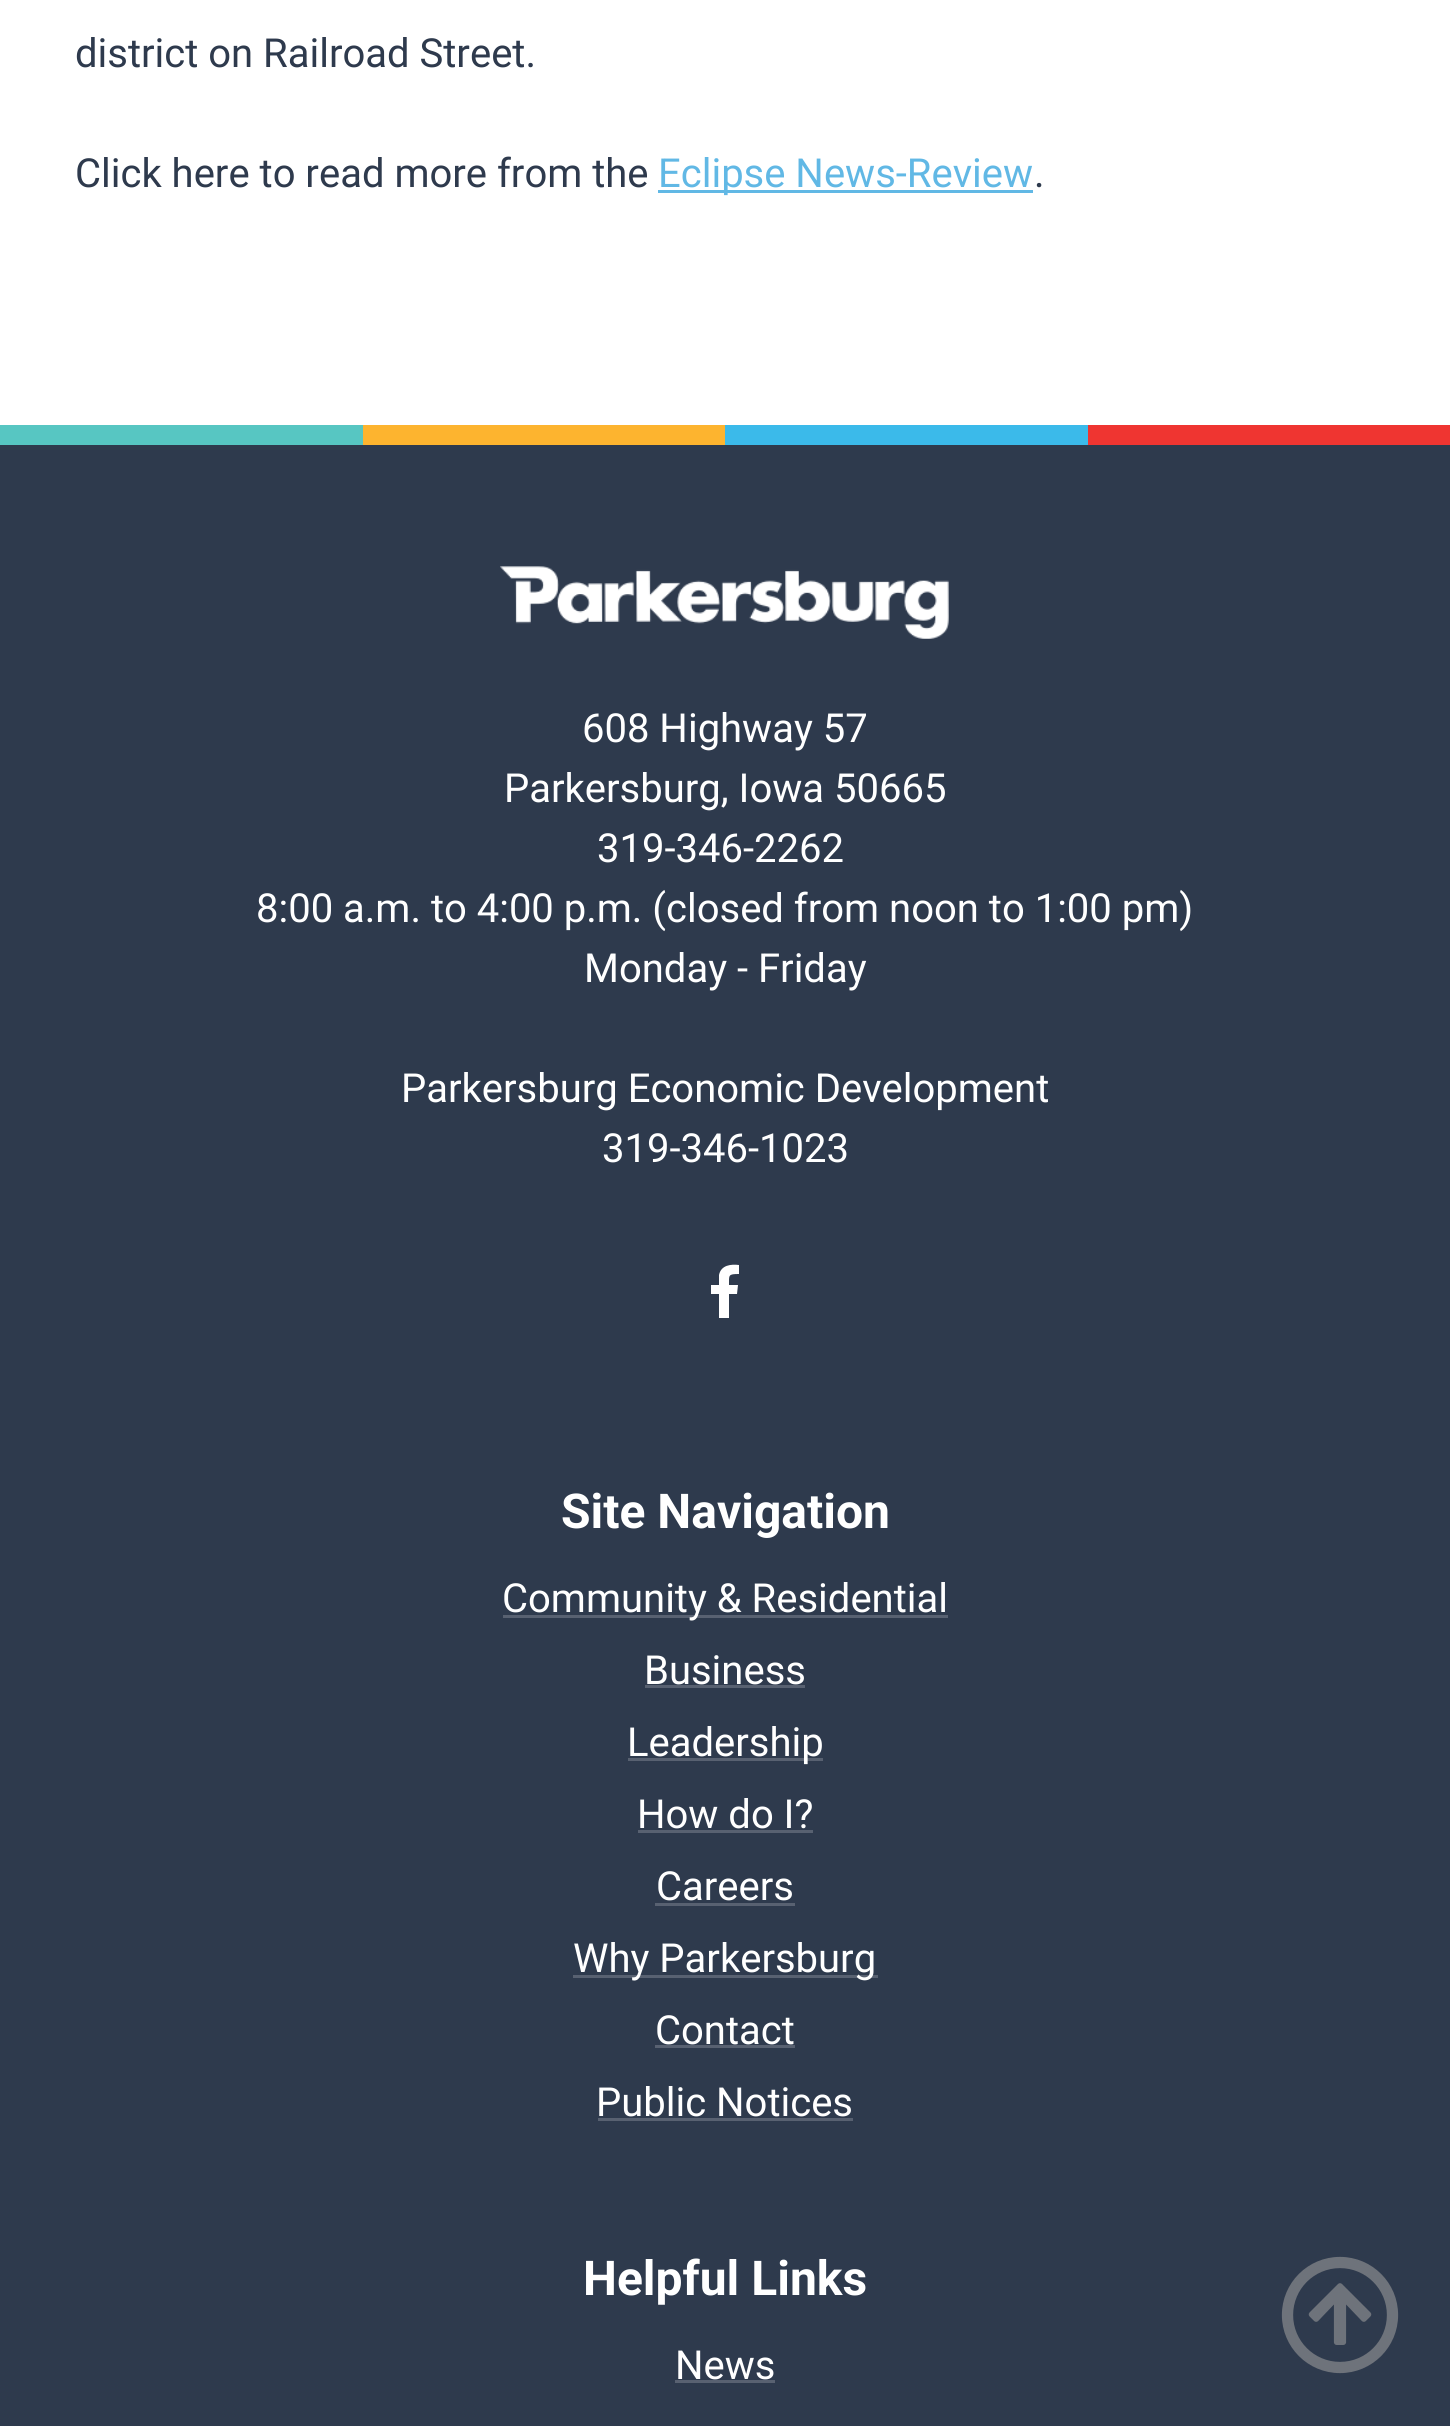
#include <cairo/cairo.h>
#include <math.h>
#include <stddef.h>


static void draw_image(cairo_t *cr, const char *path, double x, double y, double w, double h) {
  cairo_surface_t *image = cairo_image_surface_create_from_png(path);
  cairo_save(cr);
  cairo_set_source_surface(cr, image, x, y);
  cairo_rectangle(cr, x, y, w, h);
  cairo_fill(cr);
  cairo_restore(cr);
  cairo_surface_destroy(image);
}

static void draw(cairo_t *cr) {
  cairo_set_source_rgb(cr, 46 / 255.0, 58 / 255.0, 77 / 255.0);
  cairo_paint(cr);
  cairo_set_source_rgb(cr, 1, 1, 1);
  cairo_rectangle(cr, 0, 0, 1450, 425);
  cairo_fill(cr);
  cairo_set_source_rgb(cr, 97 / 255.0, 184 / 255.0, 229 / 255.0);
  cairo_rectangle(cr, 658, 190, 375, 3);
  cairo_fill(cr);
  cairo_set_source_rgb(cr, 87 / 255.0, 198 / 255.0, 194 / 255.0);
  cairo_rectangle(cr, 0, 425, 363, 20);
  cairo_fill(cr);
  cairo_set_source_rgb(cr, 253 / 255.0, 180 / 255.0, 47 / 255.0);
  cairo_rectangle(cr, 363, 425, 362, 20);
  cairo_fill(cr);
  cairo_set_source_rgb(cr, 59 / 255.0, 186 / 255.0, 234 / 255.0);
  cairo_rectangle(cr, 725, 425, 363, 20);
  cairo_fill(cr);
  cairo_set_source_rgb(cr, 239 / 255.0, 53 / 255.0, 49 / 255.0);
  cairo_rectangle(cr, 1088, 425, 362, 20);
  cairo_fill(cr);
  draw_image(cr, "images/1.png", 500, 566, 449, 73);
  cairo_set_source_rgb(cr, 1, 1, 1);
  cairo_new_path(cr);
  cairo_move_to(cr, 719, 1318);
  cairo_line_to(cr, 719, 1294);
  cairo_line_to(cr, 711, 1294);
  cairo_line_to(cr, 711, 1285);
  cairo_line_to(cr, 719, 1285);
  cairo_line_to(cr, 719, 1275);
  cairo_curve_to(cr, 721, 1265, 731, 1264, 739, 1265);
  cairo_line_to(cr, 739, 1274);
  cairo_curve_to(cr, 728, 1274, 729, 1275, 729, 1285);
  cairo_line_to(cr, 738, 1285);
  cairo_line_to(cr, 737, 1294);
  cairo_line_to(cr, 729, 1294);
  cairo_line_to(cr, 729, 1318);
  cairo_fill(cr);
  cairo_set_source_rgb(cr, 88 / 255.0, 97 / 255.0, 113 / 255.0);
  cairo_rectangle(cr, 503, 1615, 445, 3);
  cairo_fill(cr);
  cairo_rectangle(cr, 645, 1685, 160, 3);
  cairo_fill(cr);
  cairo_rectangle(cr, 628, 1758, 195, 3);
  cairo_fill(cr);
  cairo_rectangle(cr, 638, 1830, 175, 3);
  cairo_fill(cr);
  cairo_rectangle(cr, 655, 1903, 140, 3);
  cairo_fill(cr);
  cairo_rectangle(cr, 573, 1975, 305, 3);
  cairo_fill(cr);
  cairo_rectangle(cr, 655, 2045, 140, 3);
  cairo_fill(cr);
  cairo_rectangle(cr, 598, 2118, 255, 3);
  cairo_fill(cr);
  cairo_rectangle(cr, 675, 2380, 100, 3);
  cairo_fill(cr);
  draw_image(cr, "images/2.png", 1281, 2256, 118, 118);
  cairo_select_font_face(cr, "Roboto", CAIRO_FONT_SLANT_NORMAL, CAIRO_FONT_WEIGHT_NORMAL);
  cairo_set_font_size(cr, 40);
  cairo_set_source_rgb(cr, 46 / 255.0, 58 / 255.0, 77 / 255.0);
  cairo_move_to(cr, 75, 67);
  cairo_show_text(cr, "district on Railroad Street.");
  cairo_move_to(cr, 75, 187);
  cairo_show_text(cr, "Click here to read more from the");
  cairo_set_source_rgb(cr, 97 / 255.0, 184 / 255.0, 229 / 255.0);
  cairo_move_to(cr, 658, 187);
  cairo_show_text(cr, "Eclipse News-Review");
  cairo_set_source_rgb(cr, 46 / 255.0, 58 / 255.0, 77 / 255.0);
  cairo_move_to(cr, 1034, 187);
  cairo_show_text(cr, ".");
  cairo_set_source_rgb(cr, 1, 1, 1);
  cairo_move_to(cr, 582, 742);
  cairo_show_text(cr, "608 Highway 57");
  cairo_move_to(cr, 504, 802);
  cairo_show_text(cr, "Parkersburg, Iowa 50665");
  cairo_move_to(cr, 597, 862);
  cairo_show_text(cr, "319-346-2262");
  cairo_move_to(cr, 256, 922);
  cairo_show_text(cr, "8:00 a.m. to 4:00 p.m. (closed from noon to 1:00 pm)");
  cairo_move_to(cr, 584, 982);
  cairo_show_text(cr, "Monday - Friday");
  cairo_move_to(cr, 401, 1102);
  cairo_show_text(cr, "Parkersburg Economic Development");
  cairo_move_to(cr, 602, 1162);
  cairo_show_text(cr, "319-346-1023");
  cairo_select_font_face(cr, "Roboto", CAIRO_FONT_SLANT_NORMAL, CAIRO_FONT_WEIGHT_BOLD);
  cairo_set_font_size(cr, 48);
  cairo_move_to(cr, 561, 1528);
  cairo_show_text(cr, "Site Navigation");
  cairo_select_font_face(cr, "Roboto", CAIRO_FONT_SLANT_NORMAL, CAIRO_FONT_WEIGHT_NORMAL);
  cairo_set_font_size(cr, 40);
  cairo_move_to(cr, 502, 1612);
  cairo_show_text(cr, "Community & Residential");
  cairo_move_to(cr, 644, 1684);
  cairo_show_text(cr, "Business");
  cairo_move_to(cr, 627, 1756);
  cairo_show_text(cr, "Leadership");
  cairo_move_to(cr, 637, 1828);
  cairo_show_text(cr, "How do I?");
  cairo_move_to(cr, 656, 1900);
  cairo_show_text(cr, "Careers");
  cairo_move_to(cr, 573, 1972);
  cairo_show_text(cr, "Why Parkersburg");
  cairo_move_to(cr, 655, 2044);
  cairo_show_text(cr, "Contact");
  cairo_move_to(cr, 596, 2116);
  cairo_show_text(cr, "Public Notices");
  cairo_select_font_face(cr, "Roboto", CAIRO_FONT_SLANT_NORMAL, CAIRO_FONT_WEIGHT_BOLD);
  cairo_set_font_size(cr, 48);
  cairo_move_to(cr, 583, 2295);
  cairo_show_text(cr, "Helpful Links");
  cairo_select_font_face(cr, "Roboto", CAIRO_FONT_SLANT_NORMAL, CAIRO_FONT_WEIGHT_NORMAL);
  cairo_set_font_size(cr, 40);
  cairo_move_to(cr, 675, 2379);
  cairo_show_text(cr, "News");
}

int main(void) {
  cairo_surface_t *surface = cairo_image_surface_create(CAIRO_FORMAT_RGB24, 1450, 2426);
  cairo_t *cr = cairo_create(surface);
  cairo_font_options_t *options = cairo_font_options_create();
  cairo_font_options_set_hint_metrics(options, CAIRO_HINT_METRICS_OFF);
  cairo_font_options_set_hint_style(options, CAIRO_HINT_STYLE_NONE);
  cairo_set_font_options(cr, options);
  cairo_set_miter_limit(cr, 4);
  draw(cr);
  cairo_surface_write_to_png(surface, "out.png");
  cairo_font_options_destroy(options);
  cairo_destroy(cr);
  cairo_surface_destroy(surface);
  return 0;
}
